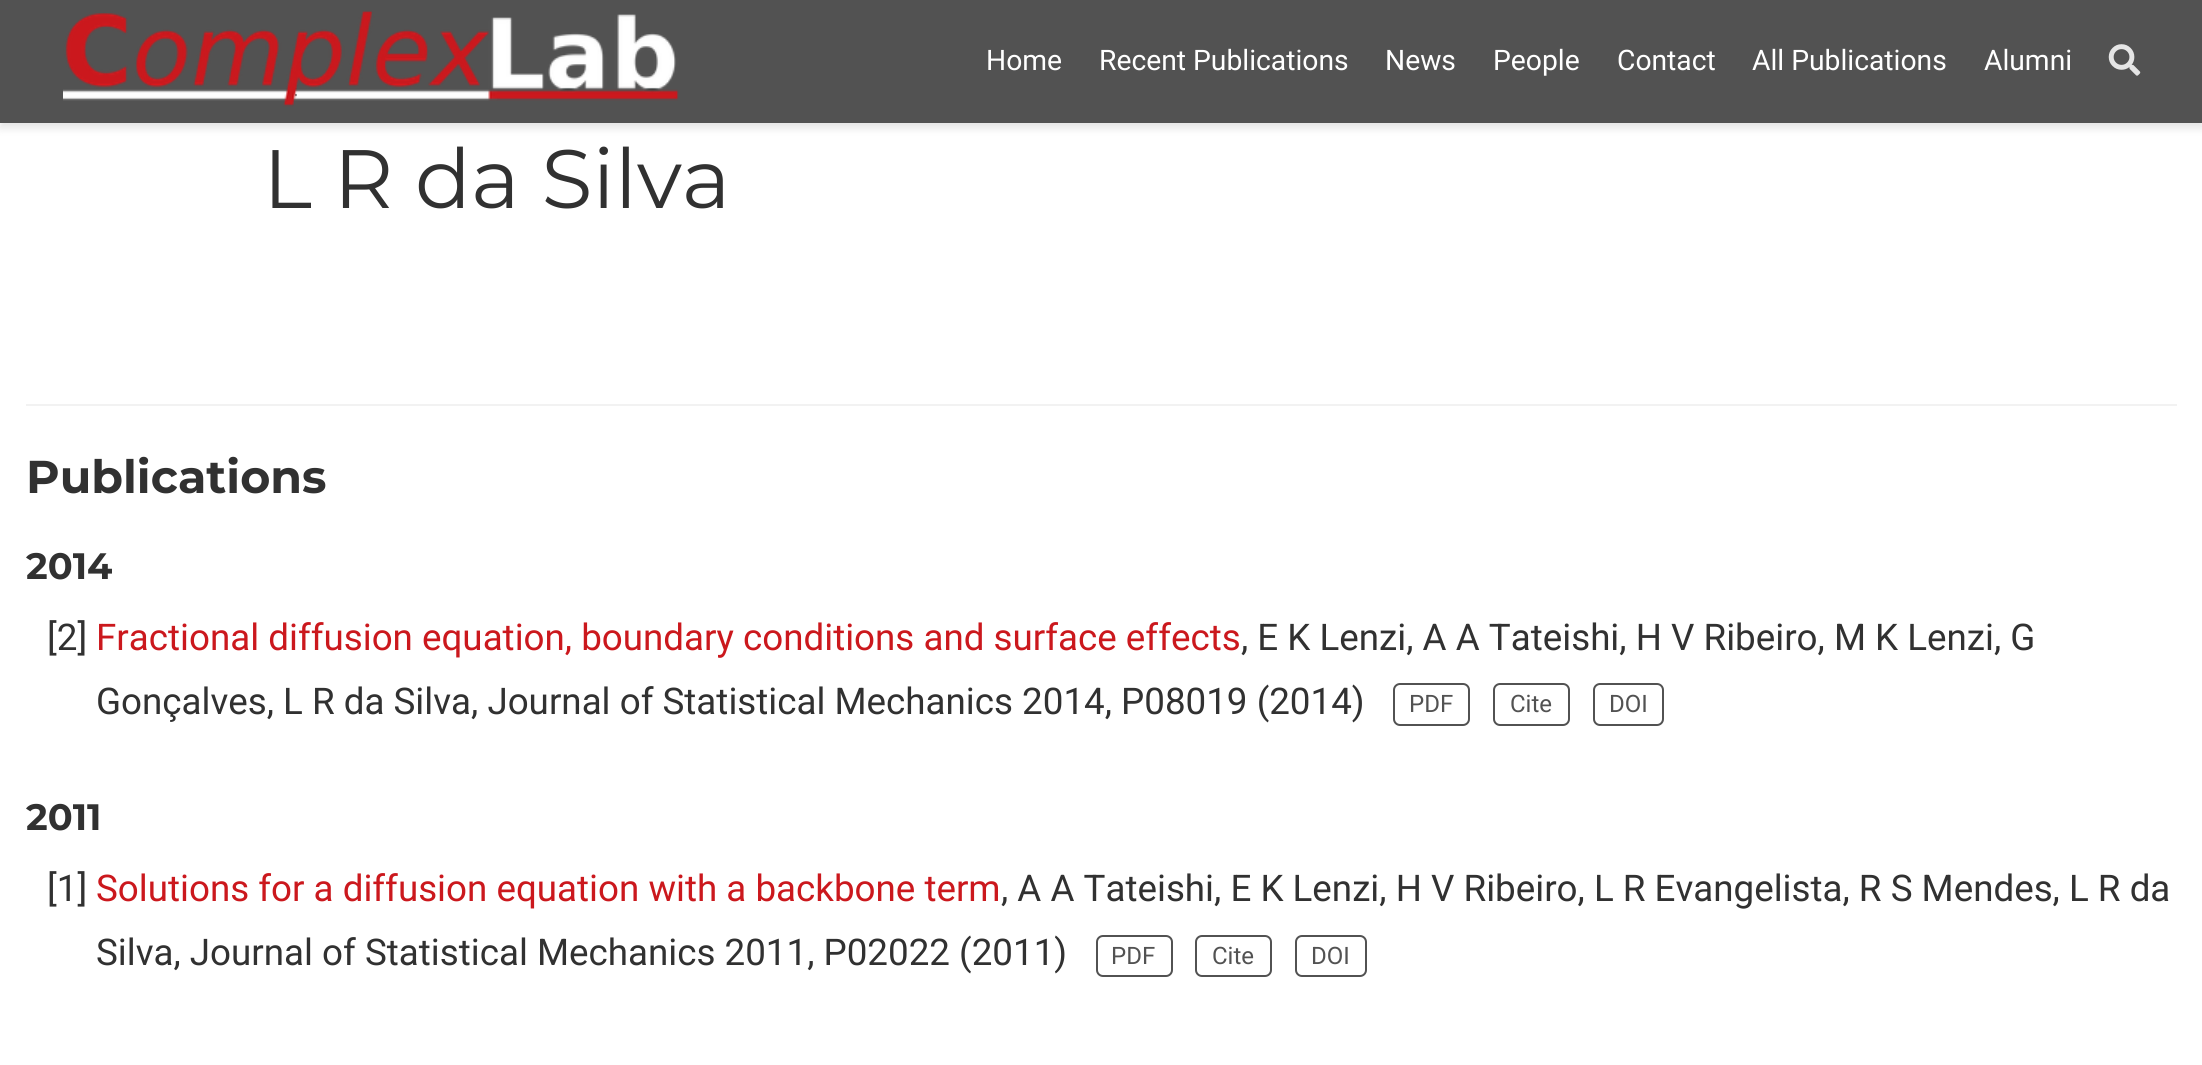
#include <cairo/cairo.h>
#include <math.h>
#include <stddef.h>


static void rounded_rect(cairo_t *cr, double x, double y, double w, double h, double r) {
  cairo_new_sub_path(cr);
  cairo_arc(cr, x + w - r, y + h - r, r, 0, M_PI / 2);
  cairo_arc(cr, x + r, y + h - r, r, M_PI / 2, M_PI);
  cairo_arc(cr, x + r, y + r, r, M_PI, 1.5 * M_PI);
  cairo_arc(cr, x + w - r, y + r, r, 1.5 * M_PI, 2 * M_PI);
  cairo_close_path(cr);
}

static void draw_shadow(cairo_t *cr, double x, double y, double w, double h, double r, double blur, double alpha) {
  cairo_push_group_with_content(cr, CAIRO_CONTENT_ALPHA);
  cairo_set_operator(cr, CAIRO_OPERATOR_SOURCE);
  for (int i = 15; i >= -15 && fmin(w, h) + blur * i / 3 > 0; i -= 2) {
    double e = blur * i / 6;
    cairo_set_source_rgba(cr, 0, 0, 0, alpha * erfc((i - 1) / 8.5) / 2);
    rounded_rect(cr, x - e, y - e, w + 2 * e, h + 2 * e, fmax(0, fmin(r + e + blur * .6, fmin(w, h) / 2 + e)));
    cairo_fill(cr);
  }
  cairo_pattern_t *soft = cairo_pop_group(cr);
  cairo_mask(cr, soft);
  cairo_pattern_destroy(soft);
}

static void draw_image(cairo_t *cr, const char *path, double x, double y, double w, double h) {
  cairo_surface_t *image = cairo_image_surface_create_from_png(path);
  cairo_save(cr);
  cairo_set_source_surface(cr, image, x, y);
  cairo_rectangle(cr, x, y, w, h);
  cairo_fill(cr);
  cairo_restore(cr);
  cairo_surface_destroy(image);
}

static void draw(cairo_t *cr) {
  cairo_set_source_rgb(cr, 1, 1, 1);
  cairo_paint(cr);
  cairo_set_source_rgb(cr, 0, 0, 0);
  draw_shadow(cr, 0, 5, 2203, 123, 0, 4.5, 0.11);
  cairo_set_source_rgb(cr, 82 / 255.0, 82 / 255.0, 82 / 255.0);
  cairo_rectangle(cr, 0, 0, 2202, 123);
  cairo_fill(cr);
  draw_image(cr, "images/1.png", 63, 10, 616, 97);
  draw_image(cr, "images/2.png", 2108, 44, 33, 32);
  cairo_set_source_rgb(cr, 242 / 255.0, 242 / 255.0, 242 / 255.0);
  cairo_rectangle(cr, 26, 404, 2151, 2);
  cairo_fill(cr);
  rounded_rect(cr, 1394, 684, 75, 41, 6);
  cairo_set_source_rgb(cr, 82 / 255.0, 82 / 255.0, 82 / 255.0);
  cairo_stroke(cr);
  rounded_rect(cr, 1494, 684, 75, 41, 6);
  cairo_stroke(cr);
  rounded_rect(cr, 1594, 684, 69, 41, 6);
  cairo_stroke(cr);
  rounded_rect(cr, 1097, 936, 75, 40, 6);
  cairo_stroke(cr);
  rounded_rect(cr, 1196, 936, 75, 40, 6);
  cairo_stroke(cr);
  rounded_rect(cr, 1296, 936, 70, 40, 6);
  cairo_stroke(cr);
  cairo_select_font_face(cr, "Roboto", CAIRO_FONT_SLANT_NORMAL, CAIRO_FONT_WEIGHT_NORMAL);
  cairo_set_font_size(cr, 28.25);
  cairo_set_source_rgb(cr, 1, 1, 1);
  cairo_move_to(cr, 986, 70);
  cairo_show_text(cr, "Home");
  cairo_move_to(cr, 1099, 70);
  cairo_show_text(cr, "Recent Publications");
  cairo_move_to(cr, 1385, 70);
  cairo_show_text(cr, "News");
  cairo_move_to(cr, 1493, 70);
  cairo_show_text(cr, "People");
  cairo_move_to(cr, 1617, 70);
  cairo_show_text(cr, "Contact");
  cairo_move_to(cr, 1752, 70);
  cairo_show_text(cr, "All Publications");
  cairo_move_to(cr, 1984, 70);
  cairo_show_text(cr, "Alumni");
  cairo_select_font_face(cr, "Montserrat", CAIRO_FONT_SLANT_NORMAL, CAIRO_FONT_WEIGHT_NORMAL);
  cairo_set_font_size(cr, 82.75);
  cairo_set_source_rgb(cr, 49 / 255.0, 49 / 255.0, 49 / 255.0);
  cairo_move_to(cr, 263, 208);
  cairo_show_text(cr, "L R da Silva");
  cairo_select_font_face(cr, "Montserrat", CAIRO_FONT_SLANT_NORMAL, CAIRO_FONT_WEIGHT_BOLD);
  cairo_set_font_size(cr, 46);
  cairo_move_to(cr, 26, 493);
  cairo_show_text(cr, "Publications");
  cairo_set_font_size(cr, 36.75);
  cairo_move_to(cr, 26, 579);
  cairo_show_text(cr, "2014");
  cairo_select_font_face(cr, "Roboto", CAIRO_FONT_SLANT_NORMAL, CAIRO_FONT_WEIGHT_NORMAL);
  cairo_move_to(cr, 47, 650);
  cairo_show_text(cr, "[2]");
  cairo_set_source_rgb(cr, 203 / 255.0, 24 / 255.0, 29 / 255.0);
  cairo_move_to(cr, 96, 650);
  cairo_show_text(cr, "Fractional diffusion equation, boundary conditions and surface effects");
  cairo_set_source_rgb(cr, 49 / 255.0, 49 / 255.0, 49 / 255.0);
  cairo_move_to(cr, 1241, 650);
  cairo_show_text(cr, ", E K Lenzi, A A Tateishi, H V Ribeiro, M K Lenzi, G");
  cairo_move_to(cr, 96, 714);
  cairo_show_text(cr, "Gonçalves, L R da Silva, Journal of Statistical Mechanics 2014, P08019 (2014)");
  cairo_set_font_size(cr, 24);
  cairo_set_source_rgb(cr, 82 / 255.0, 82 / 255.0, 82 / 255.0);
  cairo_move_to(cr, 1409, 712);
  cairo_show_text(cr, "PDF");
  cairo_move_to(cr, 1510, 712);
  cairo_show_text(cr, "Cite");
  cairo_move_to(cr, 1609, 712);
  cairo_show_text(cr, "DOI");
  cairo_select_font_face(cr, "Montserrat", CAIRO_FONT_SLANT_NORMAL, CAIRO_FONT_WEIGHT_BOLD);
  cairo_set_font_size(cr, 36.75);
  cairo_set_source_rgb(cr, 49 / 255.0, 49 / 255.0, 49 / 255.0);
  cairo_move_to(cr, 26, 830);
  cairo_show_text(cr, "2011");
  cairo_select_font_face(cr, "Roboto", CAIRO_FONT_SLANT_NORMAL, CAIRO_FONT_WEIGHT_NORMAL);
  cairo_move_to(cr, 47, 901);
  cairo_show_text(cr, "[1]");
  cairo_set_source_rgb(cr, 203 / 255.0, 24 / 255.0, 29 / 255.0);
  cairo_move_to(cr, 96, 901);
  cairo_show_text(cr, "Solutions for a diffusion equation with a backbone term");
  cairo_set_source_rgb(cr, 49 / 255.0, 49 / 255.0, 49 / 255.0);
  cairo_move_to(cr, 1001, 901);
  cairo_show_text(cr, ", A A Tateishi, E K Lenzi, H V Ribeiro, L R Evangelista, R S Mendes, L R da");
  cairo_move_to(cr, 96, 965);
  cairo_show_text(cr, "Silva, Journal of Statistical Mechanics 2011, P02022 (2011)");
  cairo_set_font_size(cr, 24);
  cairo_set_source_rgb(cr, 82 / 255.0, 82 / 255.0, 82 / 255.0);
  cairo_move_to(cr, 1111, 964);
  cairo_show_text(cr, "PDF");
  cairo_move_to(cr, 1212, 964);
  cairo_show_text(cr, "Cite");
  cairo_move_to(cr, 1311, 964);
  cairo_show_text(cr, "DOI");
}

int main(void) {
  cairo_surface_t *surface = cairo_image_surface_create(CAIRO_FORMAT_RGB24, 2202, 1065);
  cairo_t *cr = cairo_create(surface);
  cairo_font_options_t *options = cairo_font_options_create();
  cairo_font_options_set_hint_metrics(options, CAIRO_HINT_METRICS_OFF);
  cairo_font_options_set_hint_style(options, CAIRO_HINT_STYLE_NONE);
  cairo_set_font_options(cr, options);
  cairo_set_miter_limit(cr, 4);
  draw(cr);
  cairo_surface_write_to_png(surface, "out.png");
  cairo_font_options_destroy(options);
  cairo_destroy(cr);
  cairo_surface_destroy(surface);
  return 0;
}
